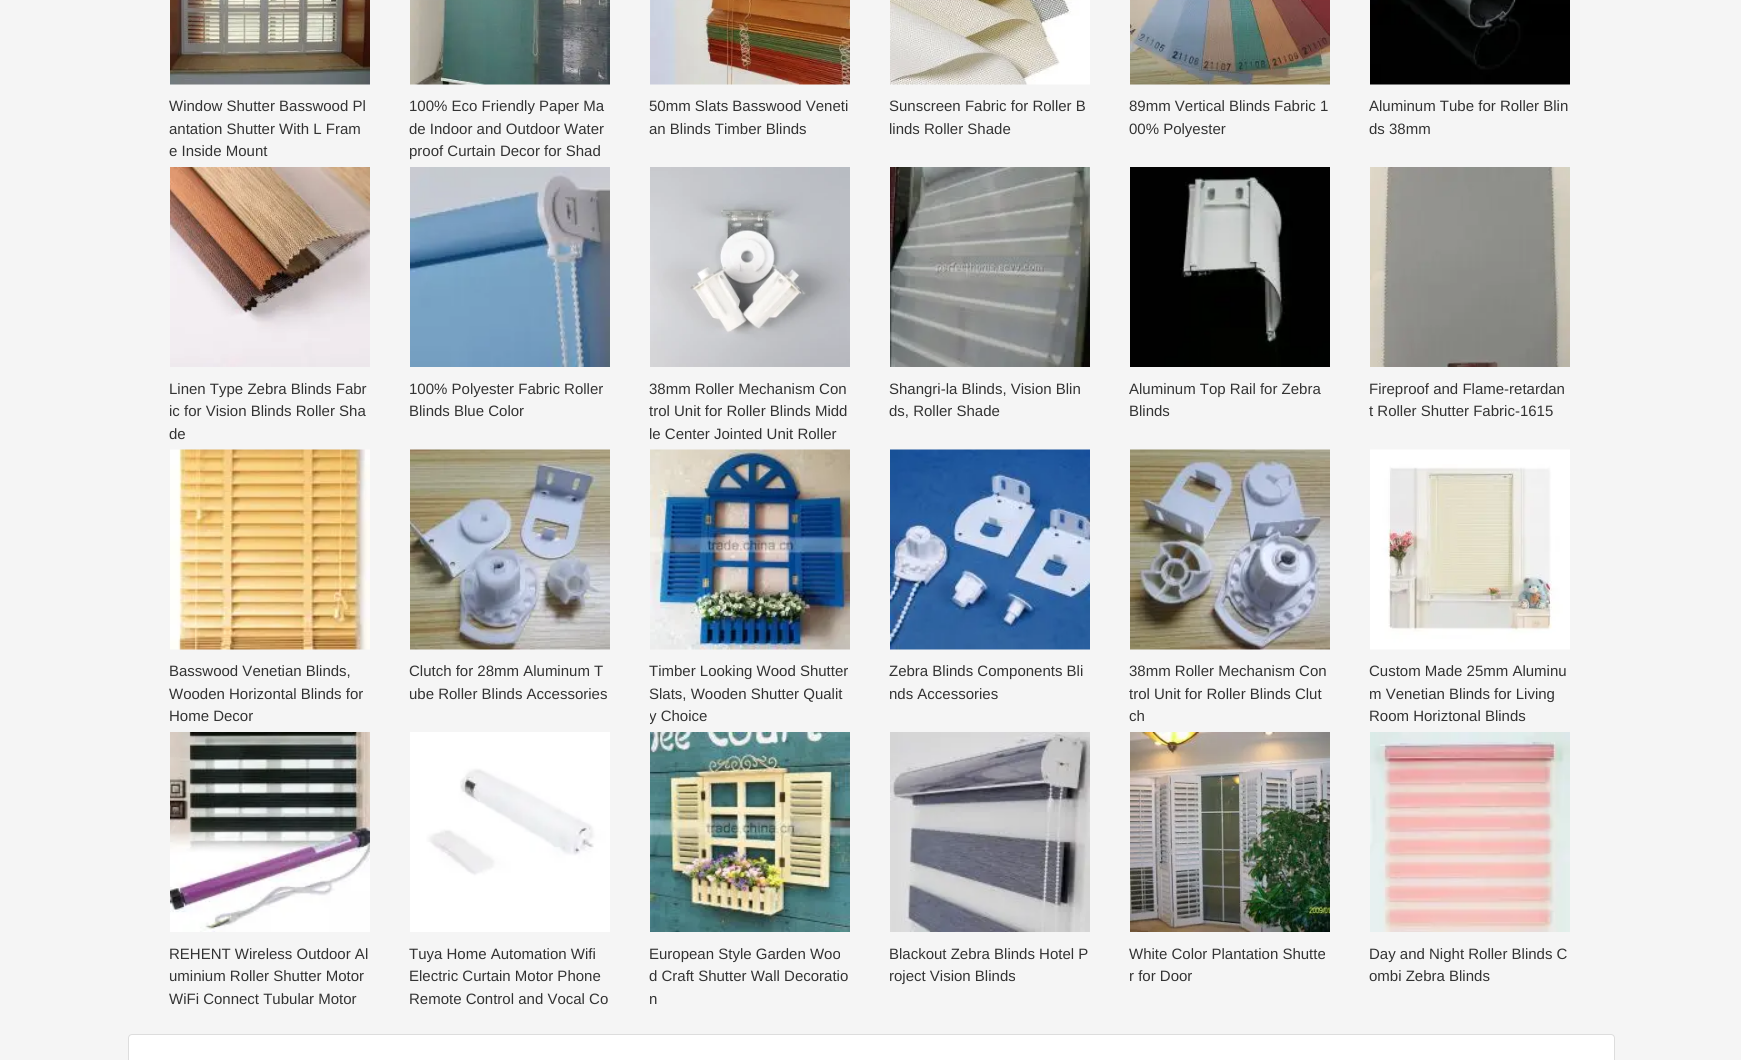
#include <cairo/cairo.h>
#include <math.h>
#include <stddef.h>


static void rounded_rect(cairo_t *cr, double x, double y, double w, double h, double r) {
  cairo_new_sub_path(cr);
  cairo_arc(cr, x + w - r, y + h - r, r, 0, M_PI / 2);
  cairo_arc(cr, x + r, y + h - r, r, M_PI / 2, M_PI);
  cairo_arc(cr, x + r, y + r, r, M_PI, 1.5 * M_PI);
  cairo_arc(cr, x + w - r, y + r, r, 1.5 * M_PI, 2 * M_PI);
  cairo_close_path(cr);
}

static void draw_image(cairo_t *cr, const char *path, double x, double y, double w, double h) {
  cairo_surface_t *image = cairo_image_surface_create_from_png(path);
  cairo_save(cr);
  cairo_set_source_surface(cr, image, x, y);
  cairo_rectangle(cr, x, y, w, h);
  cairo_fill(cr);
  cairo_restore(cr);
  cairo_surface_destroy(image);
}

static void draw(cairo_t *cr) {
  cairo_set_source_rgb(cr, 245 / 255.0, 245 / 255.0, 245 / 255.0);
  cairo_paint(cr);
  draw_image(cr, "images/1.png", 170, 0, 200, 85);
  draw_image(cr, "images/2.png", 410, 0, 200, 85);
  draw_image(cr, "images/3.png", 650, 0, 200, 85);
  draw_image(cr, "images/4.png", 890, 0, 200, 85);
  draw_image(cr, "images/5.png", 1130, 0, 200, 85);
  draw_image(cr, "images/6.png", 1370, 0, 200, 85);
  draw_image(cr, "images/7.png", 170, 167, 200, 200);
  draw_image(cr, "images/8.png", 410, 167, 200, 200);
  draw_image(cr, "images/9.png", 650, 167, 200, 200);
  draw_image(cr, "images/10.png", 890, 167, 200, 200);
  draw_image(cr, "images/11.png", 1130, 167, 200, 200);
  draw_image(cr, "images/12.png", 1370, 167, 200, 200);
  draw_image(cr, "images/13.png", 170, 449, 200, 201);
  draw_image(cr, "images/14.png", 410, 449, 200, 201);
  draw_image(cr, "images/15.png", 650, 449, 200, 201);
  draw_image(cr, "images/16.png", 890, 449, 200, 201);
  draw_image(cr, "images/17.png", 1130, 449, 200, 201);
  draw_image(cr, "images/18.png", 1370, 449, 200, 201);
  draw_image(cr, "images/19.png", 170, 732, 200, 200);
  draw_image(cr, "images/20.png", 410, 732, 200, 200);
  draw_image(cr, "images/21.png", 650, 732, 200, 200);
  draw_image(cr, "images/22.png", 890, 732, 200, 200);
  draw_image(cr, "images/23.png", 1130, 732, 200, 200);
  draw_image(cr, "images/24.png", 1370, 732, 200, 200);
  cairo_set_source_rgb(cr, 1, 1, 1);
  rounded_rect(cr, 128.5, 1034.5, 1486, 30, 3.5);
  cairo_fill_preserve(cr);
  cairo_set_source_rgb(cr, 221 / 255.0, 221 / 255.0, 221 / 255.0);
  cairo_set_line_width(cr, 1);
  cairo_stroke(cr);
  cairo_select_font_face(cr, "Liberation Sans", CAIRO_FONT_SLANT_NORMAL, CAIRO_FONT_WEIGHT_NORMAL);
  cairo_set_font_size(cr, 15);
  cairo_set_source_rgb(cr, 51 / 255.0, 51 / 255.0, 51 / 255.0);
  cairo_move_to(cr, 169, 111);
  cairo_show_text(cr, "Window Shutter Basswood Pl");
  cairo_move_to(cr, 169, 134);
  cairo_show_text(cr, "antation Shutter With L Fram");
  cairo_move_to(cr, 169, 156);
  cairo_show_text(cr, "e Inside Mount");
  cairo_move_to(cr, 409, 111);
  cairo_show_text(cr, "100% Eco Friendly Paper Ma");
  cairo_move_to(cr, 409, 134);
  cairo_show_text(cr, "de Indoor and Outdoor Water");
  cairo_move_to(cr, 409, 156);
  cairo_show_text(cr, "proof Curtain Decor for Shad");
  cairo_move_to(cr, 649, 111);
  cairo_show_text(cr, "50mm Slats Basswood Veneti");
  cairo_move_to(cr, 649, 134);
  cairo_show_text(cr, "an Blinds Timber Blinds");
  cairo_move_to(cr, 889, 111);
  cairo_show_text(cr, "Sunscreen Fabric for Roller B");
  cairo_move_to(cr, 889, 134);
  cairo_show_text(cr, "linds Roller Shade");
  cairo_move_to(cr, 1129, 111);
  cairo_show_text(cr, "89mm Vertical Blinds Fabric 1");
  cairo_move_to(cr, 1129, 134);
  cairo_show_text(cr, "00% Polyester");
  cairo_move_to(cr, 1369, 111);
  cairo_show_text(cr, "Aluminum Tube for Roller Blin");
  cairo_move_to(cr, 1369, 134);
  cairo_show_text(cr, "ds 38mm");
  cairo_move_to(cr, 169, 394);
  cairo_show_text(cr, "Linen Type Zebra Blinds Fabr");
  cairo_move_to(cr, 169, 416);
  cairo_show_text(cr, "ic for Vision Blinds Roller Sha");
  cairo_move_to(cr, 169, 439);
  cairo_show_text(cr, "de");
  cairo_move_to(cr, 409, 394);
  cairo_show_text(cr, "100% Polyester Fabric Roller");
  cairo_move_to(cr, 409, 416);
  cairo_show_text(cr, "Blinds Blue Color");
  cairo_move_to(cr, 649, 394);
  cairo_show_text(cr, "38mm Roller Mechanism Con");
  cairo_move_to(cr, 649, 416);
  cairo_show_text(cr, "trol Unit for Roller Blinds Midd");
  cairo_move_to(cr, 649, 439);
  cairo_show_text(cr, "le Center Jointed Unit Roller");
  cairo_move_to(cr, 889, 394);
  cairo_show_text(cr, "Shangri-la Blinds, Vision Blin");
  cairo_move_to(cr, 889, 416);
  cairo_show_text(cr, "ds, Roller Shade");
  cairo_move_to(cr, 1129, 394);
  cairo_show_text(cr, "Aluminum Top Rail for Zebra");
  cairo_move_to(cr, 1129, 416);
  cairo_show_text(cr, "Blinds");
  cairo_move_to(cr, 1369, 394);
  cairo_show_text(cr, "Fireproof and Flame-retardan");
  cairo_move_to(cr, 1369, 416);
  cairo_show_text(cr, "t Roller Shutter Fabric-1615");
  cairo_move_to(cr, 169, 676);
  cairo_show_text(cr, "Basswood Venetian Blinds,");
  cairo_move_to(cr, 169, 699);
  cairo_show_text(cr, "Wooden Horizontal Blinds for");
  cairo_move_to(cr, 169, 721);
  cairo_show_text(cr, "Home Decor");
  cairo_move_to(cr, 409, 676);
  cairo_show_text(cr, "Clutch for 28mm Aluminum T");
  cairo_move_to(cr, 409, 699);
  cairo_show_text(cr, "ube Roller Blinds Accessories");
  cairo_move_to(cr, 649, 676);
  cairo_show_text(cr, "Timber Looking Wood Shutter");
  cairo_move_to(cr, 649, 699);
  cairo_show_text(cr, "Slats, Wooden Shutter Qualit");
  cairo_save(cr);
  cairo_rectangle(cr, 650, 650, 200, 83);
  cairo_clip(cr);
  cairo_move_to(cr, 649, 721);
  cairo_show_text(cr, "y Choice");
  cairo_restore(cr);
  cairo_move_to(cr, 889, 676);
  cairo_show_text(cr, "Zebra Blinds Components Bli");
  cairo_move_to(cr, 889, 699);
  cairo_show_text(cr, "nds Accessories");
  cairo_move_to(cr, 1129, 676);
  cairo_show_text(cr, "38mm Roller Mechanism Con");
  cairo_move_to(cr, 1129, 699);
  cairo_show_text(cr, "trol Unit for Roller Blinds Clut");
  cairo_move_to(cr, 1129, 721);
  cairo_show_text(cr, "ch");
  cairo_move_to(cr, 1369, 676);
  cairo_show_text(cr, "Custom Made 25mm Aluminu");
  cairo_move_to(cr, 1369, 699);
  cairo_show_text(cr, "m Venetian Blinds for Living");
  cairo_move_to(cr, 1369, 721);
  cairo_show_text(cr, "Room Horiztonal Blinds");
  cairo_move_to(cr, 169, 959);
  cairo_show_text(cr, "REHENT Wireless Outdoor Al");
  cairo_move_to(cr, 169, 981);
  cairo_show_text(cr, "uminium Roller Shutter Motor");
  cairo_move_to(cr, 169, 1004);
  cairo_show_text(cr, "WiFi Connect Tubular Motor");
  cairo_move_to(cr, 409, 959);
  cairo_show_text(cr, "Tuya Home Automation Wifi");
  cairo_move_to(cr, 409, 981);
  cairo_show_text(cr, "Electric Curtain Motor Phone");
  cairo_move_to(cr, 409, 1004);
  cairo_show_text(cr, "Remote Control and Vocal Co");
  cairo_move_to(cr, 649, 959);
  cairo_show_text(cr, "European Style Garden Woo");
  cairo_move_to(cr, 649, 981);
  cairo_show_text(cr, "d Craft Shutter Wall Decoratio");
  cairo_move_to(cr, 649, 1004);
  cairo_show_text(cr, "n");
  cairo_move_to(cr, 889, 959);
  cairo_show_text(cr, "Blackout Zebra Blinds Hotel P");
  cairo_move_to(cr, 889, 981);
  cairo_show_text(cr, "roject Vision Blinds");
  cairo_move_to(cr, 1129, 959);
  cairo_show_text(cr, "White Color Plantation Shutte");
  cairo_move_to(cr, 1129, 981);
  cairo_show_text(cr, "r for Door");
  cairo_move_to(cr, 1369, 959);
  cairo_show_text(cr, "Day and Night Roller Blinds C");
  cairo_move_to(cr, 1369, 981);
  cairo_show_text(cr, "ombi Zebra Blinds");
}

int main(void) {
  cairo_surface_t *surface = cairo_image_surface_create(CAIRO_FORMAT_RGB24, 1741, 1060);
  cairo_t *cr = cairo_create(surface);
  cairo_font_options_t *options = cairo_font_options_create();
  cairo_font_options_set_hint_metrics(options, CAIRO_HINT_METRICS_OFF);
  cairo_font_options_set_hint_style(options, CAIRO_HINT_STYLE_NONE);
  cairo_set_font_options(cr, options);
  cairo_set_miter_limit(cr, 4);
  draw(cr);
  cairo_surface_write_to_png(surface, "out.png");
  cairo_font_options_destroy(options);
  cairo_destroy(cr);
  cairo_surface_destroy(surface);
  return 0;
}
